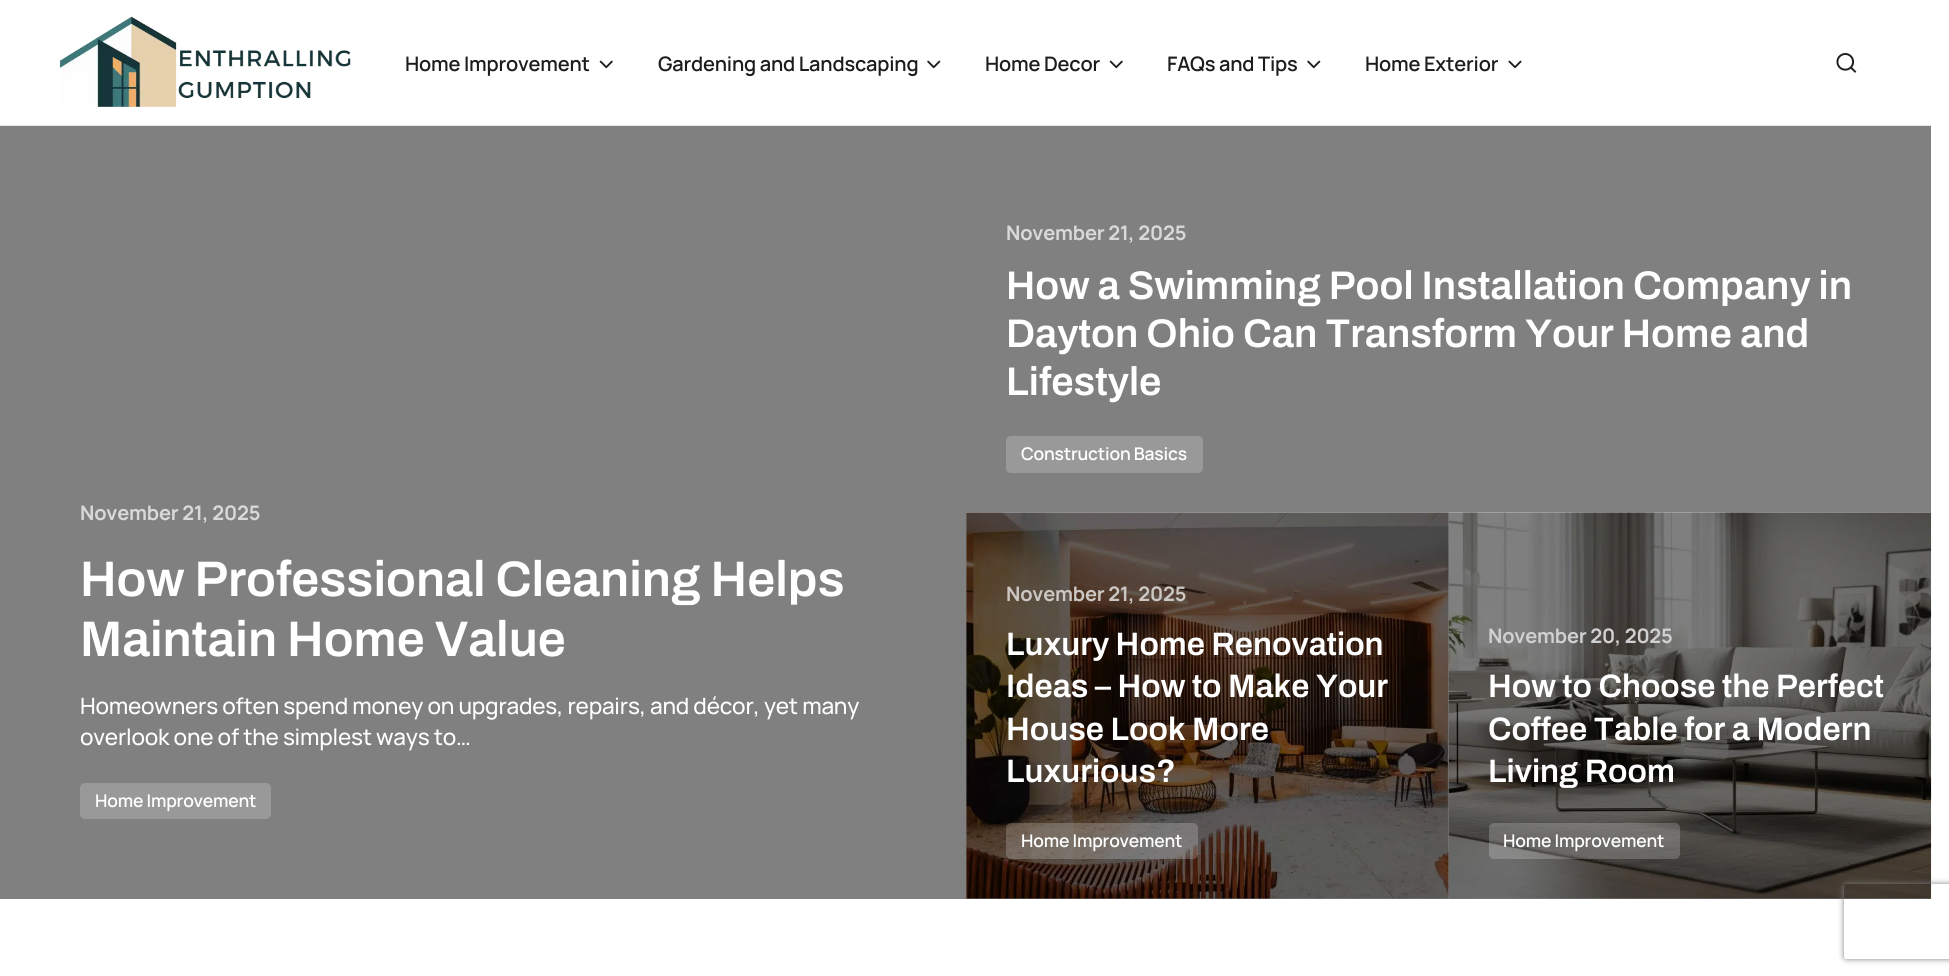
#include <cairo/cairo.h>
#include <math.h>
#include <stddef.h>


static void draw_spaced(cairo_t *cr, double x, double y, const char *s, double letter, double word) {
  cairo_move_to(cr, x, y);
  while (*s) {
    char ch[5] = {0};
    int n = 0;
    do ch[n++] = *s++; while ((*s & 0xC0) == 0x80);
    cairo_show_text(cr, ch);
    cairo_rel_move_to(cr, letter + word * (*ch == ' '), 0);
  }
}

static void rounded_rect(cairo_t *cr, double x, double y, double w, double h, double r) {
  cairo_new_sub_path(cr);
  cairo_arc(cr, x + w - r, y + h - r, r, 0, M_PI / 2);
  cairo_arc(cr, x + r, y + h - r, r, M_PI / 2, M_PI);
  cairo_arc(cr, x + r, y + r, r, M_PI, 1.5 * M_PI);
  cairo_arc(cr, x + w - r, y + r, r, 1.5 * M_PI, 2 * M_PI);
  cairo_close_path(cr);
}

static void draw_shadow(cairo_t *cr, double x, double y, double w, double h, double r, double blur, double alpha) {
  cairo_push_group_with_content(cr, CAIRO_CONTENT_ALPHA);
  cairo_set_operator(cr, CAIRO_OPERATOR_SOURCE);
  for (int i = 15; i >= -15 && fmin(w, h) + blur * i / 3 > 0; i -= 2) {
    double e = blur * i / 6;
    cairo_set_source_rgba(cr, 0, 0, 0, alpha * erfc((i - 1) / 8.5) / 2);
    rounded_rect(cr, x - e, y - e, w + 2 * e, h + 2 * e, fmax(0, fmin(r + e + blur * .6, fmin(w, h) / 2 + e)));
    cairo_fill(cr);
  }
  cairo_pattern_t *soft = cairo_pop_group(cr);
  cairo_mask(cr, soft);
  cairo_pattern_destroy(soft);
}

static void draw_image(cairo_t *cr, const char *path, double x, double y, double w, double h) {
  cairo_surface_t *image = cairo_image_surface_create_from_png(path);
  cairo_save(cr);
  cairo_set_source_surface(cr, image, x, y);
  cairo_rectangle(cr, x, y, w, h);
  cairo_fill(cr);
  cairo_restore(cr);
  cairo_surface_destroy(image);
}

static void draw(cairo_t *cr) {
  cairo_set_source_rgb(cr, 1, 1, 1);
  cairo_paint(cr);
  cairo_set_source_rgb(cr, 128 / 255.0, 128 / 255.0, 128 / 255.0);
  cairo_rectangle(cr, 1449, 898, 482, 1);
  cairo_fill(cr);
  cairo_rectangle(cr, 966, 513, 483, 386);
  cairo_fill(cr);
  draw_image(cr, "images/1.png", 60, 16, 291, 91);
  draw_image(cr, "images/2.png", 599, 60, 14, 9);
  draw_image(cr, "images/3.png", 927, 60, 14, 9);
  draw_image(cr, "images/2.png", 1109, 60, 14, 9);
  draw_image(cr, "images/3.png", 1307, 60, 14, 9);
  draw_image(cr, "images/4.png", 1508, 60, 14, 9);
  draw_image(cr, "images/5.png", 1836, 53, 21, 20);
  cairo_set_source_rgb(cr, 228 / 255.0, 228 / 255.0, 228 / 255.0);
  cairo_rectangle(cr, 0, 125, 1931, 1);
  cairo_fill(cr);
  cairo_set_source_rgb(cr, 128 / 255.0, 128 / 255.0, 128 / 255.0);
  cairo_rectangle(cr, 966, 126, 965, 387);
  cairo_fill(cr);
  cairo_set_source_rgb(cr, 153 / 255.0, 153 / 255.0, 153 / 255.0);
  rounded_rect(cr, 1006, 436, 197, 37, 5);
  cairo_fill(cr);
  cairo_set_source_rgb(cr, 128 / 255.0, 128 / 255.0, 128 / 255.0);
  cairo_rectangle(cr, 0, 126, 966, 773);
  cairo_fill(cr);
  cairo_set_source_rgb(cr, 153 / 255.0, 153 / 255.0, 153 / 255.0);
  rounded_rect(cr, 80, 783, 191, 36, 5);
  cairo_fill(cr);
  draw_image(cr, "images/6.png", 966, 512, 483, 387);
  cairo_set_source_rgba(cr, 1, 1, 1, 0.2);
  rounded_rect(cr, 1006, 823, 192, 36, 5);
  cairo_fill(cr);
  draw_image(cr, "images/7.png", 1448, 512, 484, 387);
  rounded_rect(cr, 1489, 823, 191, 36, 5);
  cairo_fill(cr);
  cairo_save(cr);
  cairo_set_fill_rule(cr, CAIRO_FILL_RULE_EVEN_ODD);
  cairo_new_path(cr);
  cairo_move_to(cr, 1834, 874);
  cairo_line_to(cr, 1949, 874);
  cairo_line_to(cr, 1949, 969);
  cairo_line_to(cr, 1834, 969);
  cairo_close_path(cr);
  cairo_move_to(cr, 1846.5, 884);
  cairo_line_to(cr, 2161.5, 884);
  cairo_curve_to(cr, 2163, 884, 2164, 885, 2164, 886.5);
  cairo_line_to(cr, 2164, 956.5);
  cairo_curve_to(cr, 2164, 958, 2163, 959, 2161.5, 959);
  cairo_line_to(cr, 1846.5, 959);
  cairo_curve_to(cr, 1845, 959, 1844, 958, 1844, 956.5);
  cairo_line_to(cr, 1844, 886.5);
  cairo_curve_to(cr, 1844, 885, 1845, 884, 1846.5, 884);
  cairo_close_path(cr);
  cairo_clip(cr);
  cairo_set_source_rgb(cr, 128 / 255.0, 128 / 255.0, 128 / 255.0);
  draw_shadow(cr, 1844, 884, 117, 75, 2.5, 3, 1);
  cairo_restore(cr);
  cairo_select_font_face(cr, "Manrope SemiBold", CAIRO_FONT_SLANT_NORMAL, CAIRO_FONT_WEIGHT_NORMAL);
  cairo_set_font_size(cr, 20);
  cairo_set_source_rgb(cr, 29 / 255.0, 29 / 255.0, 31 / 255.0);
  draw_spaced(cr, 405, 71, "Home Improvement", -0.2, 0);
  draw_spaced(cr, 658, 71, "Gardening and Landscaping", -0.2, 0);
  draw_spaced(cr, 985, 71, "Home Decor", -0.2, 0);
  draw_spaced(cr, 1167, 71, "FAQs and Tips", -0.2, 0);
  draw_spaced(cr, 1365, 71, "Home Exterior", -0.2, 0);
  cairo_select_font_face(cr, "Manrope", CAIRO_FONT_SLANT_NORMAL, CAIRO_FONT_WEIGHT_BOLD);
  cairo_set_source_rgb(cr, 217 / 255.0, 217 / 255.0, 217 / 255.0);
  draw_spaced(cr, 1006, 240, "November 21, 2025", -0.2, 0);
  cairo_select_font_face(cr, "Archivo SemiBold", CAIRO_FONT_SLANT_NORMAL, CAIRO_FONT_WEIGHT_NORMAL);
  cairo_set_font_size(cr, 40);
  cairo_set_source_rgb(cr, 1, 1, 1);
  cairo_move_to(cr, 1006, 299);
  cairo_show_text(cr, "How a Swimming Pool Installation Company in");
  cairo_move_to(cr, 1006, 347);
  cairo_show_text(cr, "Dayton Ohio Can Transform Your Home and");
  cairo_move_to(cr, 1006, 395);
  cairo_show_text(cr, "Lifestyle");
  cairo_select_font_face(cr, "Manrope SemiBold", CAIRO_FONT_SLANT_NORMAL, CAIRO_FONT_WEIGHT_NORMAL);
  cairo_set_font_size(cr, 17.5);
  draw_spaced(cr, 1021, 460, "Construction Basics", -0.2, 0);
  cairo_select_font_face(cr, "Manrope", CAIRO_FONT_SLANT_NORMAL, CAIRO_FONT_WEIGHT_BOLD);
  cairo_set_font_size(cr, 20);
  cairo_set_source_rgb(cr, 217 / 255.0, 217 / 255.0, 217 / 255.0);
  draw_spaced(cr, 80, 520, "November 21, 2025", -0.2, 0);
  cairo_select_font_face(cr, "Archivo SemiBold", CAIRO_FONT_SLANT_NORMAL, CAIRO_FONT_WEIGHT_NORMAL);
  cairo_set_font_size(cr, 50);
  cairo_set_source_rgb(cr, 1, 1, 1);
  cairo_move_to(cr, 80, 596);
  cairo_show_text(cr, "How Professional Cleaning Helps");
  cairo_move_to(cr, 80, 656);
  cairo_show_text(cr, "Maintain Home Value");
  cairo_select_font_face(cr, "Manrope Medium", CAIRO_FONT_SLANT_NORMAL, CAIRO_FONT_WEIGHT_NORMAL);
  cairo_set_font_size(cr, 22.5);
  draw_spaced(cr, 80, 714, "Homeowners often spend money on upgrades, repairs, and décor, yet many", -0.22, 0);
  draw_spaced(cr, 80, 745, "overlook one of the simplest ways to…", -0.22, 0);
  cairo_select_font_face(cr, "Manrope SemiBold", CAIRO_FONT_SLANT_NORMAL, CAIRO_FONT_WEIGHT_NORMAL);
  cairo_set_font_size(cr, 17.5);
  draw_spaced(cr, 95, 807, "Home Improvement", -0.2, 0);
  cairo_select_font_face(cr, "Manrope", CAIRO_FONT_SLANT_NORMAL, CAIRO_FONT_WEIGHT_BOLD);
  cairo_set_font_size(cr, 20);
  cairo_set_source_rgb(cr, 204 / 255.0, 199 / 255.0, 195 / 255.0);
  draw_spaced(cr, 1006, 601, "November 21, 2025", -0.2, 0);
  cairo_select_font_face(cr, "Archivo SemiBold", CAIRO_FONT_SLANT_NORMAL, CAIRO_FONT_WEIGHT_NORMAL);
  cairo_set_font_size(cr, 32.5);
  cairo_set_source_rgb(cr, 1, 1, 1);
  cairo_move_to(cr, 1006, 655);
  cairo_show_text(cr, "Luxury Home Renovation");
  cairo_move_to(cr, 1006, 697);
  cairo_show_text(cr, "Ideas – How to Make Your");
  cairo_move_to(cr, 1006, 740);
  cairo_show_text(cr, "House Look More");
  cairo_move_to(cr, 1006, 782);
  cairo_show_text(cr, "Luxurious?");
  cairo_select_font_face(cr, "Manrope SemiBold", CAIRO_FONT_SLANT_NORMAL, CAIRO_FONT_WEIGHT_NORMAL);
  cairo_set_font_size(cr, 17.5);
  draw_spaced(cr, 1021, 847, "Home Improvement", -0.2, 0);
  cairo_select_font_face(cr, "Manrope", CAIRO_FONT_SLANT_NORMAL, CAIRO_FONT_WEIGHT_BOLD);
  cairo_set_font_size(cr, 20);
  cairo_set_source_rgb(cr, 209 / 255.0, 208 / 255.0, 208 / 255.0);
  draw_spaced(cr, 1488, 643, "November 20, 2025", -0.2, 0);
  cairo_select_font_face(cr, "Archivo SemiBold", CAIRO_FONT_SLANT_NORMAL, CAIRO_FONT_WEIGHT_NORMAL);
  cairo_set_font_size(cr, 32.5);
  cairo_set_source_rgb(cr, 1, 1, 1);
  cairo_move_to(cr, 1488, 697);
  cairo_show_text(cr, "How to Choose the Perfect");
  cairo_move_to(cr, 1488, 740);
  cairo_show_text(cr, "Coffee Table for a Modern");
  cairo_move_to(cr, 1488, 782);
  cairo_show_text(cr, "Living Room");
  cairo_select_font_face(cr, "Manrope SemiBold", CAIRO_FONT_SLANT_NORMAL, CAIRO_FONT_WEIGHT_NORMAL);
  cairo_set_font_size(cr, 17.5);
  draw_spaced(cr, 1503, 847, "Home Improvement", -0.2, 0);
}

int main(void) {
  cairo_surface_t *surface = cairo_image_surface_create(CAIRO_FORMAT_RGB24, 1949, 976);
  cairo_t *cr = cairo_create(surface);
  cairo_font_options_t *options = cairo_font_options_create();
  cairo_font_options_set_hint_metrics(options, CAIRO_HINT_METRICS_OFF);
  cairo_font_options_set_hint_style(options, CAIRO_HINT_STYLE_NONE);
  cairo_set_font_options(cr, options);
  cairo_set_miter_limit(cr, 4);
  draw(cr);
  cairo_surface_write_to_png(surface, "out.png");
  cairo_font_options_destroy(options);
  cairo_destroy(cr);
  cairo_surface_destroy(surface);
  return 0;
}
